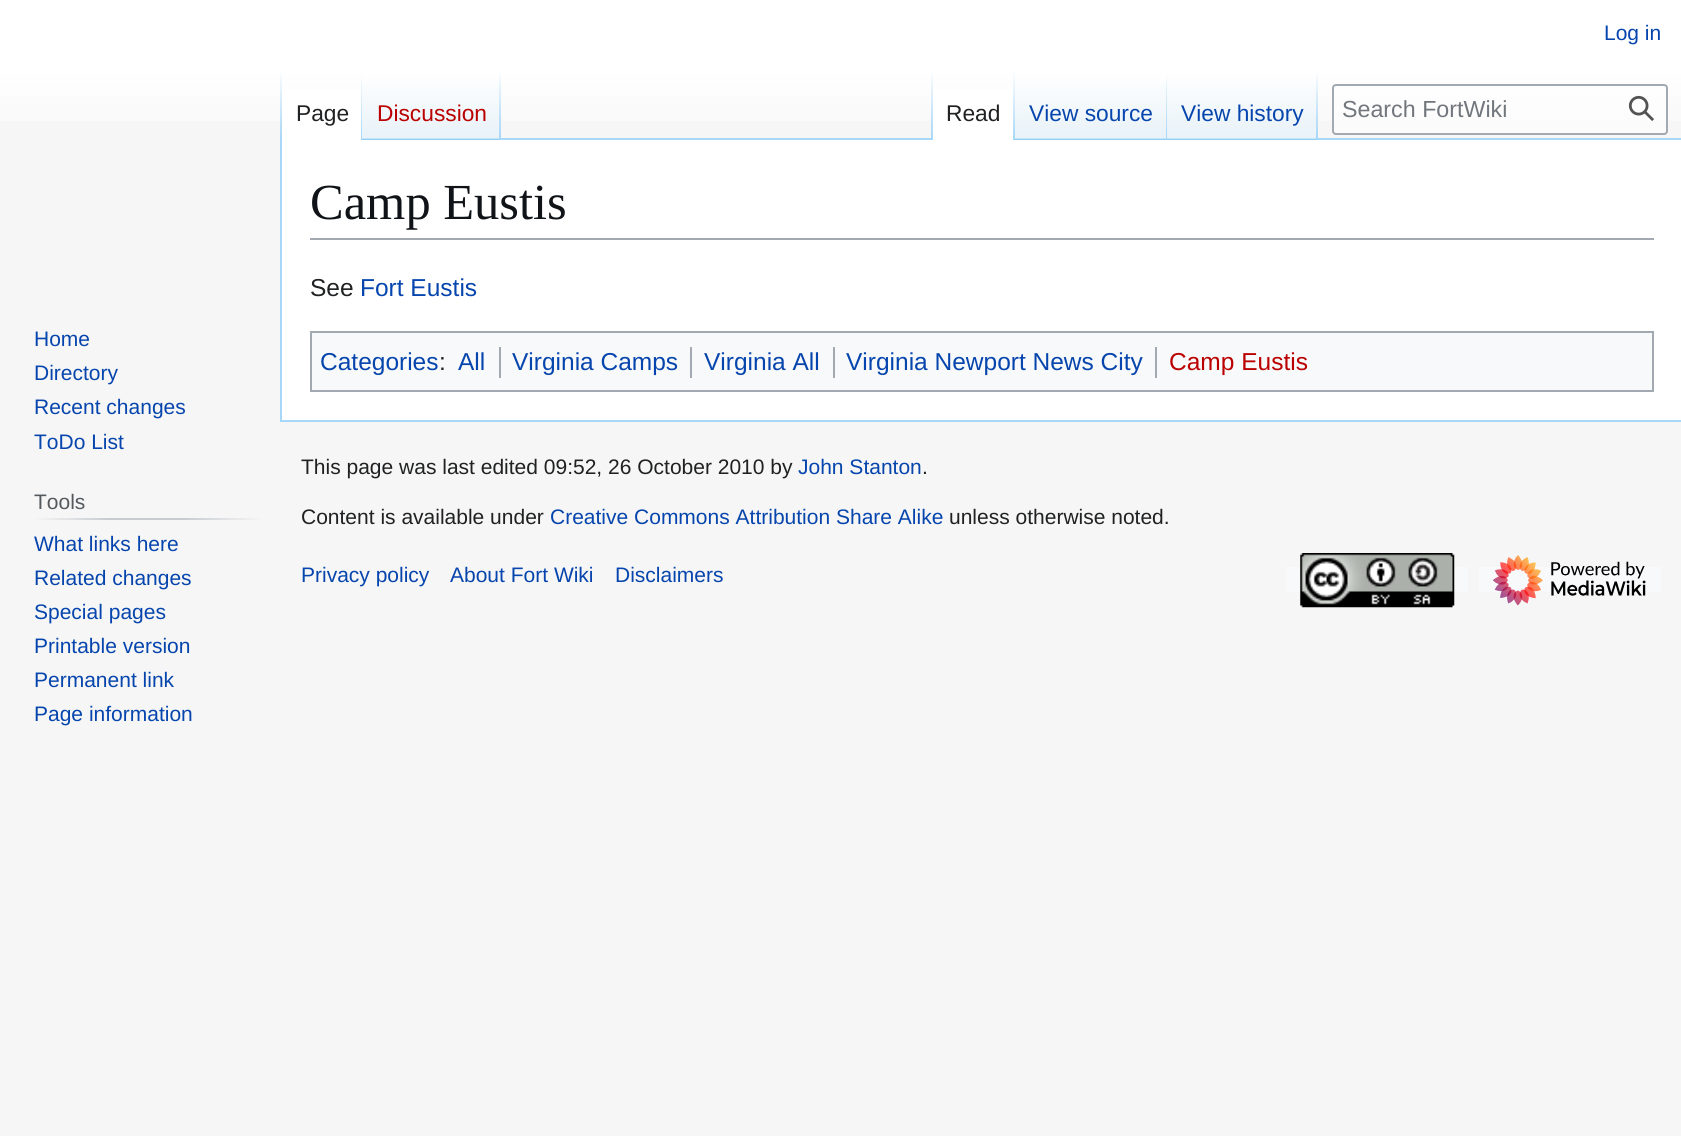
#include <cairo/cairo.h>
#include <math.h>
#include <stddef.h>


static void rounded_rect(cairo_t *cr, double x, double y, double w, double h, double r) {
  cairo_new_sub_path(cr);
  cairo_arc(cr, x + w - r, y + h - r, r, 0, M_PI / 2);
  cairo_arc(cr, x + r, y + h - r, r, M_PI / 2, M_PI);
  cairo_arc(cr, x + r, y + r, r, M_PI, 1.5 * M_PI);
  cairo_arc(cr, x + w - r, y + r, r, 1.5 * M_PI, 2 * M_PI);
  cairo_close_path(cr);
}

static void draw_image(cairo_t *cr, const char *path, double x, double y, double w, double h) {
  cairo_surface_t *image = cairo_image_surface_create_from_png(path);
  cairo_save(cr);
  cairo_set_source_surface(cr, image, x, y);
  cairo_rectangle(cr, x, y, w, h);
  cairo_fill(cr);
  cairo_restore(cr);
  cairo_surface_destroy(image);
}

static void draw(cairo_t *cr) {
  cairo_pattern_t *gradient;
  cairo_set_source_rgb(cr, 246 / 255.0, 246 / 255.0, 246 / 255.0);
  cairo_paint(cr);
  gradient = cairo_pattern_create_linear(841, 0, 841, 140);
  cairo_pattern_add_color_stop_rgba(gradient, 0.5, 1, 1, 1, 1);
  cairo_pattern_add_color_stop_rgba(gradient, 1, 246 / 255.0, 246 / 255.0, 246 / 255.0, 1);
  cairo_set_source(cr, gradient);
  cairo_pattern_destroy(gradient);
  cairo_rectangle(cr, 0, 0, 1681, 121);
  cairo_fill(cr);
  cairo_set_source_rgb(cr, 167 / 255.0, 215 / 255.0, 249 / 255.0);
  cairo_rectangle(cr, 280, 420, 1401, 2);
  cairo_fill(cr);
  cairo_rectangle(cr, 280, 138, 2, 284);
  cairo_fill(cr);
  gradient = cairo_pattern_create_linear(281, 70, 281, 140);
  cairo_pattern_add_color_stop_rgba(gradient, 0, 167 / 255.0, 215 / 255.0, 249 / 255.0, 0);
  cairo_pattern_add_color_stop_rgba(gradient, 1, 167 / 255.0, 215 / 255.0, 249 / 255.0, 1);
  cairo_set_source(cr, gradient);
  cairo_pattern_destroy(gradient);
  cairo_rectangle(cr, 280, 70, 2, 70);
  cairo_fill(cr);
  cairo_set_source_rgb(cr, 1, 1, 1);
  cairo_rectangle(cr, 282, 89, 79, 51);
  cairo_fill(cr);
  gradient = cairo_pattern_create_linear(361, 70, 361, 140);
  cairo_pattern_add_color_stop_rgba(gradient, 0, 1, 1, 1, 1);
  cairo_pattern_add_color_stop_rgba(gradient, 1, 167 / 255.0, 215 / 255.0, 249 / 255.0, 1);
  cairo_set_source(cr, gradient);
  cairo_pattern_destroy(gradient);
  cairo_rectangle(cr, 361, 70, 1, 70);
  cairo_fill(cr);
  gradient = cairo_pattern_create_linear(431, 140, 431, 70);
  cairo_pattern_add_color_stop_rgba(gradient, 0, 119 / 255.0, 193 / 255.0, 246 / 255.0, 1);
  cairo_pattern_add_color_stop_rgba(gradient, 0.03, 232 / 255.0, 242 / 255.0, 248 / 255.0, 1);
  cairo_pattern_add_color_stop_rgba(gradient, 1, 1, 1, 1, 1);
  cairo_set_source(cr, gradient);
  cairo_pattern_destroy(gradient);
  cairo_rectangle(cr, 362, 80, 139, 60);
  cairo_fill(cr);
  gradient = cairo_pattern_create_linear(500, 70, 500, 140);
  cairo_pattern_add_color_stop_rgba(gradient, 0, 167 / 255.0, 215 / 255.0, 249 / 255.0, 0);
  cairo_pattern_add_color_stop_rgba(gradient, 1, 167 / 255.0, 215 / 255.0, 249 / 255.0, 1);
  cairo_set_source(cr, gradient);
  cairo_pattern_destroy(gradient);
  cairo_rectangle(cr, 499, 70, 2, 70);
  cairo_fill(cr);
  cairo_set_source_rgb(cr, 167 / 255.0, 215 / 255.0, 249 / 255.0);
  cairo_rectangle(cr, 501, 138, 1180, 2);
  cairo_fill(cr);
  gradient = cairo_pattern_create_linear(932, 70, 932, 140);
  cairo_pattern_add_color_stop_rgba(gradient, 0, 167 / 255.0, 215 / 255.0, 249 / 255.0, 0);
  cairo_pattern_add_color_stop_rgba(gradient, 1, 167 / 255.0, 215 / 255.0, 249 / 255.0, 1);
  cairo_set_source(cr, gradient);
  cairo_pattern_destroy(gradient);
  cairo_rectangle(cr, 931, 70, 2, 70);
  cairo_fill(cr);
  cairo_set_source_rgb(cr, 1, 1, 1);
  cairo_rectangle(cr, 933, 89, 80, 51);
  cairo_fill(cr);
  gradient = cairo_pattern_create_linear(1014, 70, 1014, 140);
  cairo_pattern_add_color_stop_rgba(gradient, 0, 1, 1, 1, 1);
  cairo_pattern_add_color_stop_rgba(gradient, 1, 167 / 255.0, 215 / 255.0, 249 / 255.0, 1);
  cairo_set_source(cr, gradient);
  cairo_pattern_destroy(gradient);
  cairo_rectangle(cr, 1013, 70, 2, 70);
  cairo_fill(cr);
  gradient = cairo_pattern_create_linear(1091, 140, 1091, 70);
  cairo_pattern_add_color_stop_rgba(gradient, 0, 119 / 255.0, 193 / 255.0, 246 / 255.0, 1);
  cairo_pattern_add_color_stop_rgba(gradient, 0.03, 232 / 255.0, 242 / 255.0, 248 / 255.0, 1);
  cairo_pattern_add_color_stop_rgba(gradient, 1, 1, 1, 1, 1);
  cairo_set_source(cr, gradient);
  cairo_pattern_destroy(gradient);
  cairo_rectangle(cr, 1015, 80, 152, 60);
  cairo_fill(cr);
  gradient = cairo_pattern_create_linear(1166, 70, 1166, 140);
  cairo_pattern_add_color_stop_rgba(gradient, 0, 167 / 255.0, 215 / 255.0, 249 / 255.0, 0);
  cairo_pattern_add_color_stop_rgba(gradient, 1, 167 / 255.0, 215 / 255.0, 249 / 255.0, 1);
  cairo_set_source(cr, gradient);
  cairo_pattern_destroy(gradient);
  cairo_rectangle(cr, 1166, 70, 1, 70);
  cairo_fill(cr);
  gradient = cairo_pattern_create_linear(1243, 140, 1243, 70);
  cairo_pattern_add_color_stop_rgba(gradient, 0, 119 / 255.0, 193 / 255.0, 246 / 255.0, 1);
  cairo_pattern_add_color_stop_rgba(gradient, 0.03, 232 / 255.0, 242 / 255.0, 248 / 255.0, 1);
  cairo_pattern_add_color_stop_rgba(gradient, 1, 1, 1, 1, 1);
  cairo_set_source(cr, gradient);
  cairo_pattern_destroy(gradient);
  cairo_rectangle(cr, 1167, 80, 151, 60);
  cairo_fill(cr);
  gradient = cairo_pattern_create_linear(1317, 70, 1317, 140);
  cairo_pattern_add_color_stop_rgba(gradient, 0, 167 / 255.0, 215 / 255.0, 249 / 255.0, 0);
  cairo_pattern_add_color_stop_rgba(gradient, 1, 167 / 255.0, 215 / 255.0, 249 / 255.0, 1);
  cairo_set_source(cr, gradient);
  cairo_pattern_destroy(gradient);
  cairo_rectangle(cr, 1316, 70, 2, 70);
  cairo_fill(cr);
  cairo_set_source_rgba(cr, 1, 1, 1, 0.5);
  rounded_rect(cr, 1333, 85, 334, 49, 3);
  cairo_fill_preserve(cr);
  cairo_set_source_rgb(cr, 162 / 255.0, 169 / 255.0, 177 / 255.0);
  cairo_stroke(cr);
  draw_image(cr, "images/1.png", 1628, 95, 26, 26);
  gradient = cairo_pattern_create_linear(33, 519, 263, 519);
  cairo_pattern_add_color_stop_rgba(gradient, 0, 246 / 255.0, 246 / 255.0, 246 / 255.0, 1);
  cairo_pattern_add_color_stop_rgba(gradient, 0.33, 200 / 255.0, 204 / 255.0, 209 / 255.0, 1);
  cairo_pattern_add_color_stop_rgba(gradient, 0.66, 200 / 255.0, 204 / 255.0, 209 / 255.0, 1);
  cairo_pattern_add_color_stop_rgba(gradient, 1, 246 / 255.0, 246 / 255.0, 246 / 255.0, 1);
  cairo_set_source(cr, gradient);
  cairo_pattern_destroy(gradient);
  cairo_rectangle(cr, 33, 518, 230, 2);
  cairo_fill(cr);
  cairo_set_source_rgb(cr, 1, 1, 1);
  cairo_rectangle(cr, 282, 140, 1399, 280);
  cairo_fill(cr);
  cairo_set_source_rgb(cr, 162 / 255.0, 169 / 255.0, 177 / 255.0);
  cairo_rectangle(cr, 310, 238, 1344, 2);
  cairo_fill(cr);
  cairo_set_source_rgb(cr, 248 / 255.0, 249 / 255.0, 250 / 255.0);
  cairo_rectangle(cr, 311, 332, 1342, 59);
  cairo_fill_preserve(cr);
  cairo_set_source_rgb(cr, 162 / 255.0, 169 / 255.0, 177 / 255.0);
  cairo_stroke(cr);
  cairo_rectangle(cr, 499, 347, 2, 31);
  cairo_fill(cr);
  cairo_rectangle(cr, 690, 347, 2, 31);
  cairo_fill(cr);
  cairo_rectangle(cr, 833, 347, 2, 31);
  cairo_fill(cr);
  cairo_rectangle(cr, 1155, 347, 2, 31);
  cairo_fill(cr);
  cairo_set_source_rgb(cr, 248 / 255.0, 249 / 255.0, 250 / 255.0);
  cairo_rectangle(cr, 1286, 567, 182, 25);
  cairo_fill(cr);
  draw_image(cr, "images/2.png", 1300, 553, 155, 55);
  cairo_rectangle(cr, 1479, 567, 182, 25);
  cairo_fill(cr);
  draw_image(cr, "images/3.png", 1493, 555, 153, 51);
  cairo_select_font_face(cr, "Liberation Sans", CAIRO_FONT_SLANT_NORMAL, CAIRO_FONT_WEIGHT_NORMAL);
  cairo_set_font_size(cr, 21);
  cairo_set_source_rgb(cr, 6 / 255.0, 69 / 255.0, 173 / 255.0);
  cairo_move_to(cr, 1604, 40);
  cairo_show_text(cr, "Log in");
  cairo_set_font_size(cr, 22.75);
  cairo_set_source_rgb(cr, 32 / 255.0, 33 / 255.0, 34 / 255.0);
  cairo_move_to(cr, 296, 121);
  cairo_show_text(cr, "Page");
  cairo_set_source_rgb(cr, 186 / 255.0, 0, 0);
  cairo_move_to(cr, 377, 121);
  cairo_show_text(cr, "Discussion");
  cairo_set_source_rgb(cr, 32 / 255.0, 33 / 255.0, 34 / 255.0);
  cairo_move_to(cr, 946, 121);
  cairo_show_text(cr, "Read");
  cairo_set_source_rgb(cr, 6 / 255.0, 69 / 255.0, 173 / 255.0);
  cairo_move_to(cr, 1029, 121);
  cairo_show_text(cr, "View source");
  cairo_move_to(cr, 1181, 121);
  cairo_show_text(cr, "View history");
  cairo_set_font_size(cr, 23.25);
  cairo_set_source_rgb(cr, 114 / 255.0, 119 / 255.0, 125 / 255.0);
  cairo_move_to(cr, 1342, 117);
  cairo_show_text(cr, "Search FortWiki");
  cairo_set_font_size(cr, 21);
  cairo_set_source_rgb(cr, 6 / 255.0, 69 / 255.0, 173 / 255.0);
  cairo_move_to(cr, 34, 346);
  cairo_show_text(cr, "Home");
  cairo_move_to(cr, 34, 380);
  cairo_show_text(cr, "Directory");
  cairo_move_to(cr, 34, 414);
  cairo_show_text(cr, "Recent changes");
  cairo_move_to(cr, 34, 449);
  cairo_show_text(cr, "ToDo List");
  cairo_set_source_rgb(cr, 84 / 255.0, 89 / 255.0, 93 / 255.0);
  cairo_move_to(cr, 34, 509);
  cairo_show_text(cr, "Tools");
  cairo_set_source_rgb(cr, 6 / 255.0, 69 / 255.0, 173 / 255.0);
  cairo_move_to(cr, 34, 551);
  cairo_show_text(cr, "What links here");
  cairo_move_to(cr, 34, 585);
  cairo_show_text(cr, "Related changes");
  cairo_move_to(cr, 34, 619);
  cairo_show_text(cr, "Special pages");
  cairo_move_to(cr, 34, 653);
  cairo_show_text(cr, "Printable version");
  cairo_move_to(cr, 34, 687);
  cairo_show_text(cr, "Permanent link");
  cairo_move_to(cr, 34, 721);
  cairo_show_text(cr, "Page information");
  cairo_select_font_face(cr, "Liberation Serif", CAIRO_FONT_SLANT_NORMAL, CAIRO_FONT_WEIGHT_NORMAL);
  cairo_set_font_size(cr, 50.5);
  cairo_set_source_rgb(cr, 16 / 255.0, 20 / 255.0, 24 / 255.0);
  cairo_move_to(cr, 310, 219);
  cairo_show_text(cr, "Camp Eustis");
  cairo_select_font_face(cr, "Liberation Sans", CAIRO_FONT_SLANT_NORMAL, CAIRO_FONT_WEIGHT_NORMAL);
  cairo_set_font_size(cr, 24.5);
  cairo_set_source_rgb(cr, 32 / 255.0, 33 / 255.0, 34 / 255.0);
  cairo_move_to(cr, 310, 296);
  cairo_show_text(cr, "See");
  cairo_set_source_rgb(cr, 6 / 255.0, 69 / 255.0, 173 / 255.0);
  cairo_move_to(cr, 360, 296);
  cairo_show_text(cr, "Fort Eustis");
  cairo_move_to(cr, 320, 370);
  cairo_show_text(cr, "Categories");
  cairo_set_source_rgb(cr, 32 / 255.0, 33 / 255.0, 34 / 255.0);
  cairo_move_to(cr, 439, 370);
  cairo_show_text(cr, ":");
  cairo_set_source_rgb(cr, 6 / 255.0, 69 / 255.0, 173 / 255.0);
  cairo_move_to(cr, 458, 370);
  cairo_show_text(cr, "All");
  cairo_move_to(cr, 512, 370);
  cairo_show_text(cr, "Virginia Camps");
  cairo_move_to(cr, 704, 370);
  cairo_show_text(cr, "Virginia All");
  cairo_move_to(cr, 846, 370);
  cairo_show_text(cr, "Virginia Newport News City");
  cairo_set_source_rgb(cr, 186 / 255.0, 0, 0);
  cairo_move_to(cr, 1169, 370);
  cairo_show_text(cr, "Camp Eustis");
  cairo_set_font_size(cr, 21);
  cairo_set_source_rgb(cr, 32 / 255.0, 33 / 255.0, 34 / 255.0);
  cairo_move_to(cr, 301, 474);
  cairo_show_text(cr, "This page was last edited 09:52, 26 October 2010 by");
  cairo_set_source_rgb(cr, 6 / 255.0, 69 / 255.0, 173 / 255.0);
  cairo_move_to(cr, 798, 474);
  cairo_show_text(cr, "John Stanton");
  cairo_set_source_rgb(cr, 32 / 255.0, 33 / 255.0, 34 / 255.0);
  cairo_move_to(cr, 922, 474);
  cairo_show_text(cr, ".");
  cairo_move_to(cr, 301, 524);
  cairo_show_text(cr, "Content is available under");
  cairo_set_source_rgb(cr, 6 / 255.0, 69 / 255.0, 173 / 255.0);
  cairo_move_to(cr, 550, 524);
  cairo_show_text(cr, "Creative Commons Attribution Share Alike");
  cairo_set_source_rgb(cr, 32 / 255.0, 33 / 255.0, 34 / 255.0);
  cairo_move_to(cr, 949, 524);
  cairo_show_text(cr, "unless otherwise noted.");
  cairo_set_source_rgb(cr, 6 / 255.0, 69 / 255.0, 173 / 255.0);
  cairo_move_to(cr, 301, 582);
  cairo_show_text(cr, "Privacy policy");
  cairo_move_to(cr, 450, 582);
  cairo_show_text(cr, "About Fort Wiki");
  cairo_move_to(cr, 615, 582);
  cairo_show_text(cr, "Disclaimers");
}

int main(void) {
  cairo_surface_t *surface = cairo_image_surface_create(CAIRO_FORMAT_RGB24, 1681, 1136);
  cairo_t *cr = cairo_create(surface);
  cairo_font_options_t *options = cairo_font_options_create();
  cairo_font_options_set_hint_metrics(options, CAIRO_HINT_METRICS_OFF);
  cairo_font_options_set_hint_style(options, CAIRO_HINT_STYLE_NONE);
  cairo_set_font_options(cr, options);
  cairo_set_miter_limit(cr, 4);
  draw(cr);
  cairo_surface_write_to_png(surface, "out.png");
  cairo_font_options_destroy(options);
  cairo_destroy(cr);
  cairo_surface_destroy(surface);
  return 0;
}
